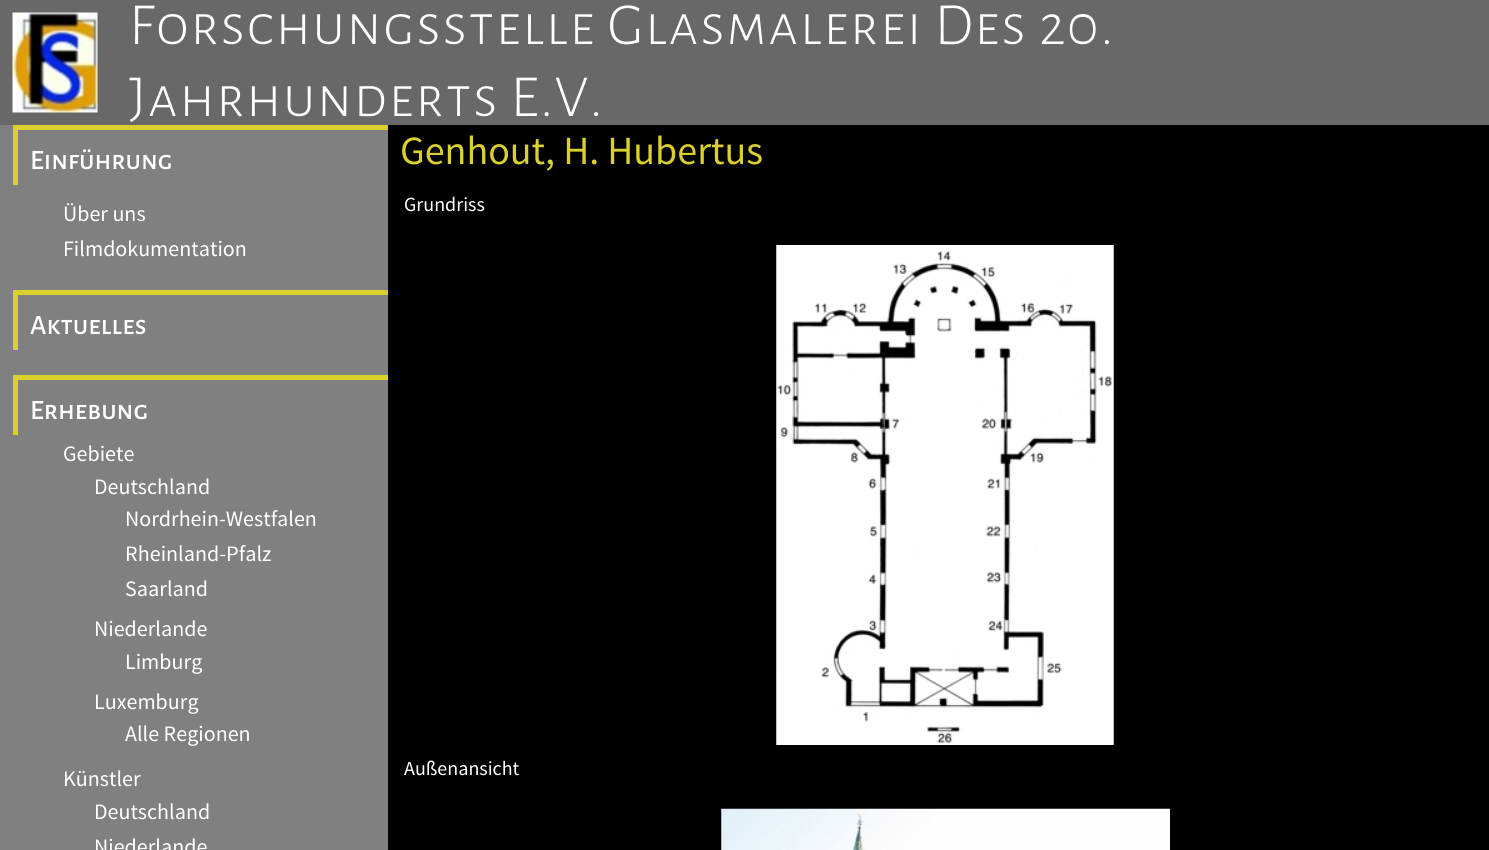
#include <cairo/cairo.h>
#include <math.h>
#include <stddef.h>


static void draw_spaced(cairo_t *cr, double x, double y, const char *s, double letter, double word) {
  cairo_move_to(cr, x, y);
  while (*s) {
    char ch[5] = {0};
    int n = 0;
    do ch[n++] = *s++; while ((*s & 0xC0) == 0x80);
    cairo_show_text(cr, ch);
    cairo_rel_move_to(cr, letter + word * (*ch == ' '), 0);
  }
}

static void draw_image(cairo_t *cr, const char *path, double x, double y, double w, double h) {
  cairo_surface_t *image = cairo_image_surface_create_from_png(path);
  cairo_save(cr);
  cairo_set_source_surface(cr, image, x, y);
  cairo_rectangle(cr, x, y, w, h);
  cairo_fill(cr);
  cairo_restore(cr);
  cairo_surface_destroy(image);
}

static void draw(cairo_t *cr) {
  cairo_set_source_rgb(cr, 128 / 255.0, 128 / 255.0, 128 / 255.0);
  cairo_paint(cr);
  cairo_set_source_rgb(cr, 104 / 255.0, 104 / 255.0, 104 / 255.0);
  cairo_rectangle(cr, 0, 0, 1489, 125);
  cairo_fill(cr);
  draw_image(cr, "images/1.png", 12, 12, 86, 101);
  cairo_set_source_rgb(cr, 219 / 255.0, 209 / 255.0, 45 / 255.0);
  cairo_rectangle(cr, 13, 125, 375, 5);
  cairo_fill(cr);
  cairo_rectangle(cr, 13, 125, 5, 60);
  cairo_fill(cr);
  cairo_rectangle(cr, 13, 290, 375, 5);
  cairo_fill(cr);
  cairo_rectangle(cr, 13, 290, 5, 60);
  cairo_fill(cr);
  cairo_rectangle(cr, 13, 375, 375, 5);
  cairo_fill(cr);
  cairo_rectangle(cr, 13, 375, 5, 60);
  cairo_fill(cr);
  cairo_set_source_rgb(cr, 0, 0, 0);
  cairo_rectangle(cr, 388, 125, 1101, 725);
  cairo_fill(cr);
  draw_image(cr, "images/2.png", 776, 245, 338, 500);
  draw_image(cr, "images/3.png", 721, 808, 449, 42);
  cairo_select_font_face(cr, "Alegreya Sans SC Light", CAIRO_FONT_SLANT_NORMAL, CAIRO_FONT_WEIGHT_NORMAL);
  cairo_set_font_size(cr, 60);
  cairo_set_source_rgb(cr, 1, 1, 1);
  draw_spaced(cr, 129, 44, "Forschungsstelle Glasmalerei Des 20.", 1.25, 0);
  draw_spaced(cr, 129, 116, "Jahrhunderts E.V.", 1.25, 0);
  cairo_select_font_face(cr, "Alegreya Sans SC Medium", CAIRO_FONT_SLANT_NORMAL, CAIRO_FONT_WEIGHT_NORMAL);
  cairo_set_font_size(cr, 28);
  cairo_move_to(cr, 30, 169);
  cairo_show_text(cr, "Einführung");
  cairo_select_font_face(cr, "Source Sans Pro", CAIRO_FONT_SLANT_NORMAL, CAIRO_FONT_WEIGHT_NORMAL);
  cairo_set_font_size(cr, 22);
  cairo_move_to(cr, 63, 221);
  cairo_show_text(cr, "Über uns");
  cairo_move_to(cr, 63, 256);
  cairo_show_text(cr, "Filmdokumentation");
  cairo_select_font_face(cr, "Alegreya Sans SC Medium", CAIRO_FONT_SLANT_NORMAL, CAIRO_FONT_WEIGHT_NORMAL);
  cairo_set_font_size(cr, 28);
  cairo_move_to(cr, 30, 334);
  cairo_show_text(cr, "Aktuelles");
  cairo_move_to(cr, 30, 419);
  cairo_show_text(cr, "Erhebung");
  cairo_select_font_face(cr, "Source Sans Pro", CAIRO_FONT_SLANT_NORMAL, CAIRO_FONT_WEIGHT_NORMAL);
  cairo_set_font_size(cr, 22);
  cairo_move_to(cr, 63, 461);
  cairo_show_text(cr, "Gebiete");
  cairo_move_to(cr, 94, 494);
  cairo_show_text(cr, "Deutschland");
  cairo_move_to(cr, 125, 526);
  cairo_show_text(cr, "Nordrhein-Westfalen");
  cairo_move_to(cr, 125, 561);
  cairo_show_text(cr, "Rheinland-Pfalz");
  cairo_move_to(cr, 125, 596);
  cairo_show_text(cr, "Saarland");
  cairo_move_to(cr, 94, 636);
  cairo_show_text(cr, "Niederlande");
  cairo_move_to(cr, 125, 669);
  cairo_show_text(cr, "Limburg");
  cairo_move_to(cr, 94, 709);
  cairo_show_text(cr, "Luxemburg");
  cairo_move_to(cr, 125, 741);
  cairo_show_text(cr, "Alle Regionen");
  cairo_move_to(cr, 63, 786);
  cairo_show_text(cr, "Künstler");
  cairo_move_to(cr, 94, 819);
  cairo_show_text(cr, "Deutschland");
  cairo_move_to(cr, 94, 854);
  cairo_show_text(cr, "Niederlande");
  cairo_set_font_size(cr, 40);
  cairo_set_source_rgb(cr, 219 / 255.0, 209 / 255.0, 45 / 255.0);
  cairo_move_to(cr, 400, 164);
  cairo_show_text(cr, "Genhout, H. Hubertus");
  cairo_set_font_size(cr, 20);
  cairo_set_source_rgb(cr, 1, 1, 1);
  cairo_move_to(cr, 404, 211);
  cairo_show_text(cr, "Grundriss");
  cairo_move_to(cr, 404, 775);
  cairo_show_text(cr, "Außenansicht");
}

int main(void) {
  cairo_surface_t *surface = cairo_image_surface_create(CAIRO_FORMAT_RGB24, 1489, 850);
  cairo_t *cr = cairo_create(surface);
  cairo_font_options_t *options = cairo_font_options_create();
  cairo_font_options_set_hint_metrics(options, CAIRO_HINT_METRICS_OFF);
  cairo_font_options_set_hint_style(options, CAIRO_HINT_STYLE_NONE);
  cairo_set_font_options(cr, options);
  cairo_set_miter_limit(cr, 4);
  draw(cr);
  cairo_surface_write_to_png(surface, "out.png");
  cairo_font_options_destroy(options);
  cairo_destroy(cr);
  cairo_surface_destroy(surface);
  return 0;
}
